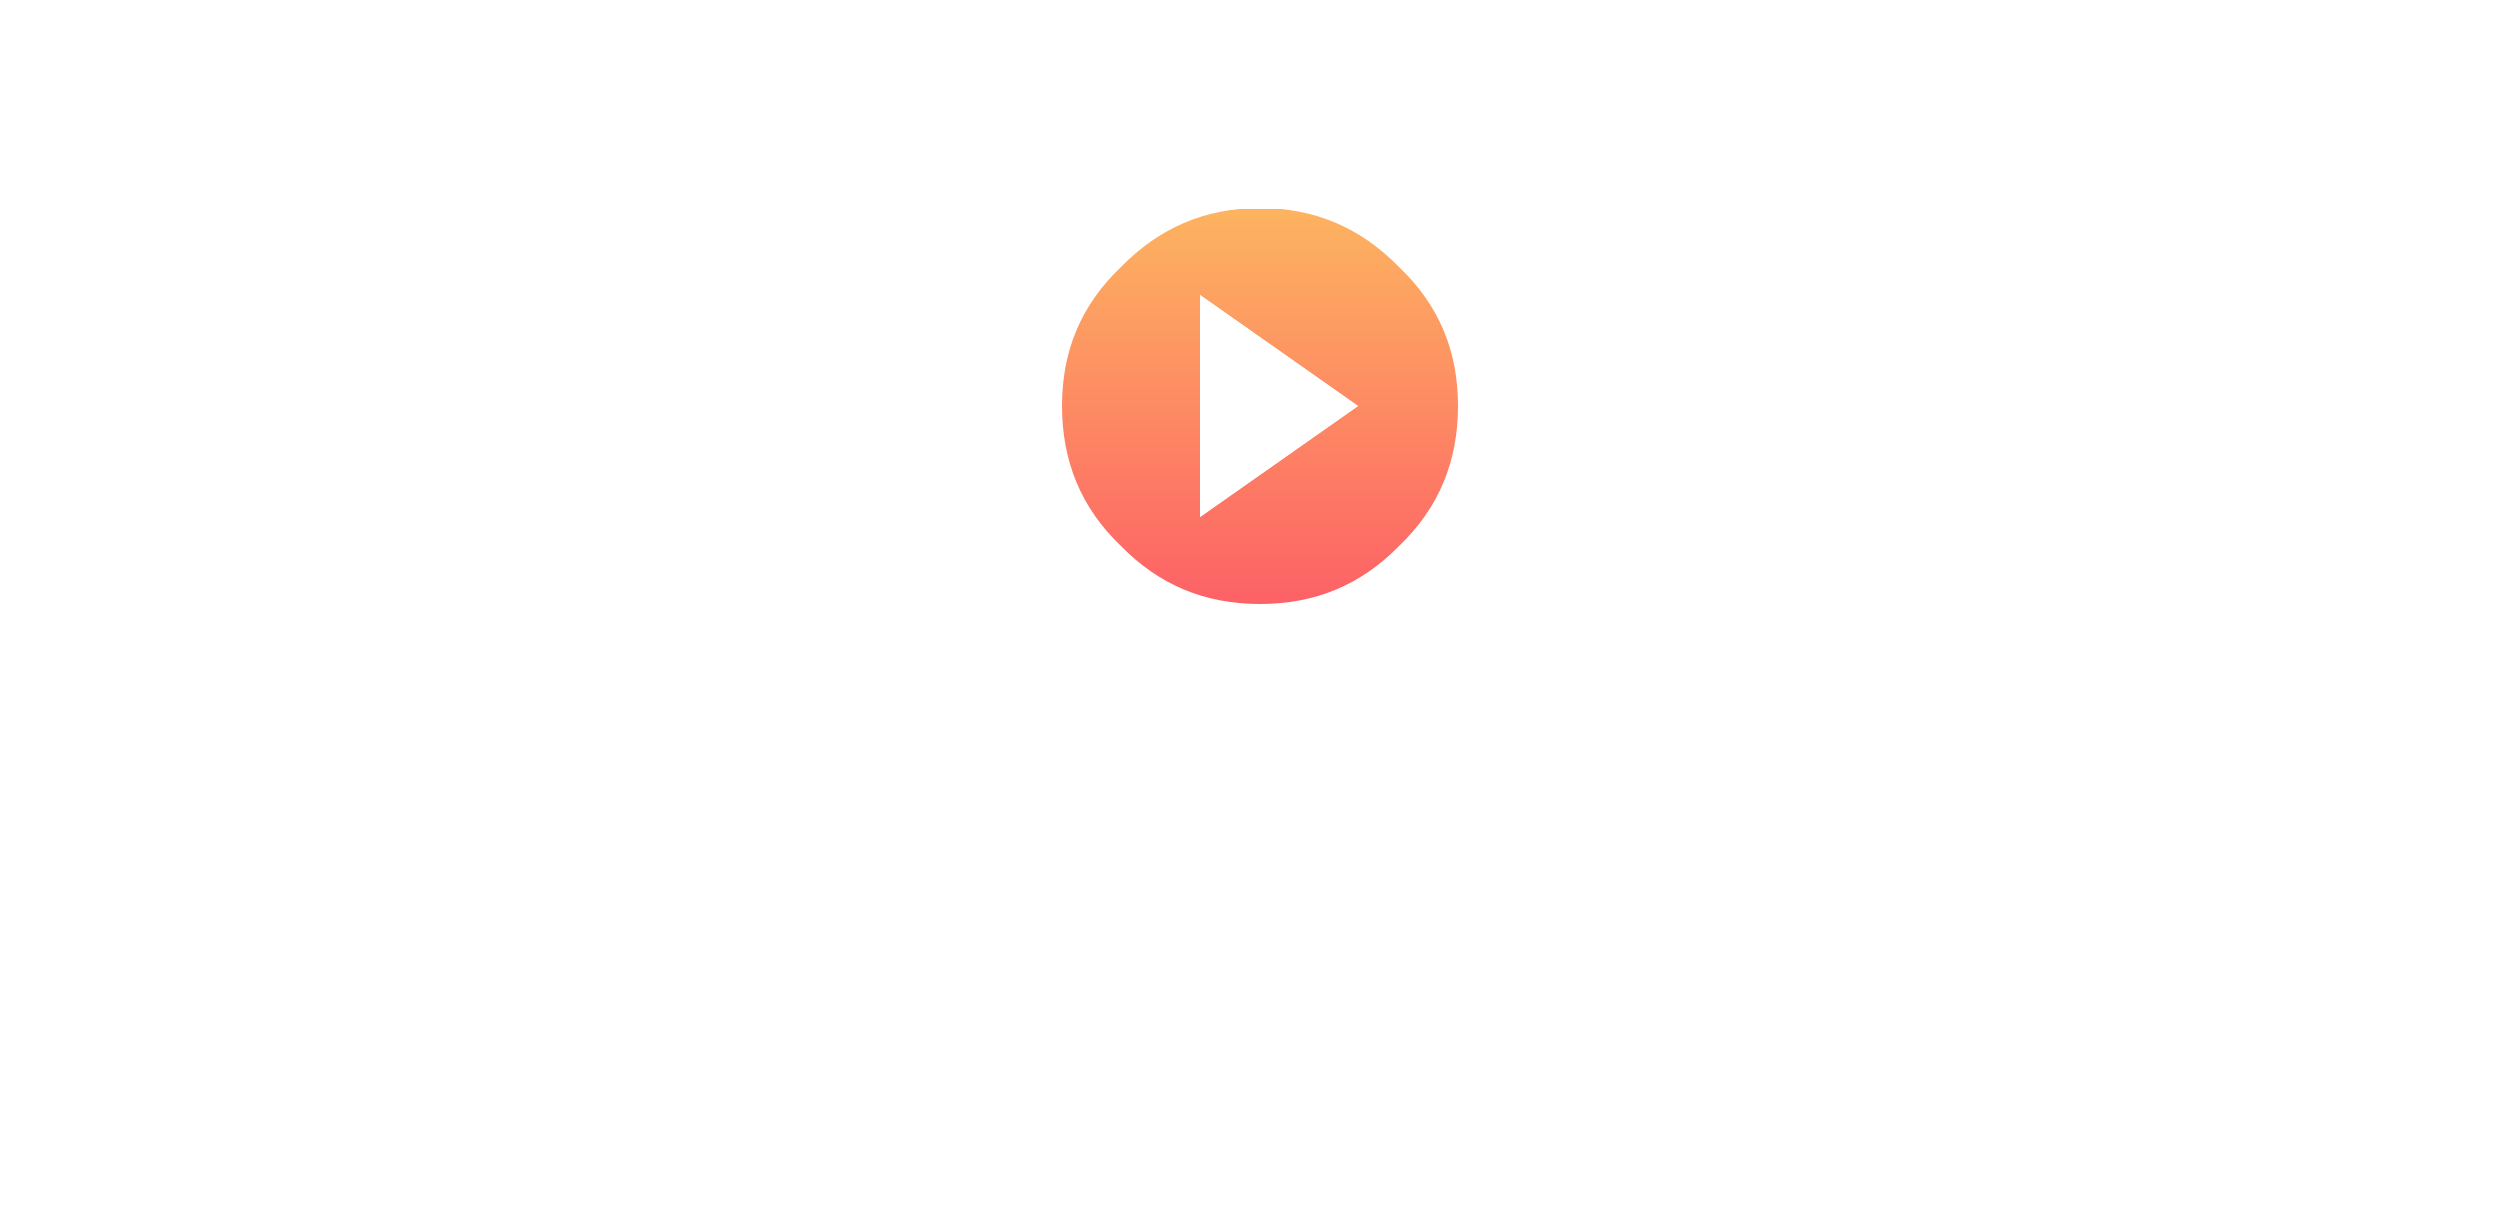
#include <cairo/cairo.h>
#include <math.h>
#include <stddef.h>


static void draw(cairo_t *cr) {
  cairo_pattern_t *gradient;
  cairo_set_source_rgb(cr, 1, 1, 1);
  cairo_paint(cr);
  cairo_save(cr);
  cairo_rectangle(cr, 1020, 209, 480, 396);
  cairo_clip(cr);
  gradient = cairo_pattern_create_linear(1260, 208, 1260, 604);
  cairo_pattern_add_color_stop_rgba(gradient, 0, 253 / 255.0, 180 / 255.0, 96 / 255.0, 1);
  cairo_pattern_add_color_stop_rgba(gradient, 1, 253 / 255.0, 97 / 255.0, 102 / 255.0, 1);
  cairo_set_source(cr, gradient);
  cairo_pattern_destroy(gradient);
  cairo_new_path(cr);
  cairo_move_to(cr, 1458, 406);
  cairo_curve_to(cr, 1458, 351, 1439, 305, 1399, 267);
  cairo_curve_to(cr, 1361, 228, 1315, 208, 1260, 208);
  cairo_curve_to(cr, 1205, 208, 1159, 228, 1121, 267);
  cairo_curve_to(cr, 1081, 305, 1062, 351, 1062, 406);
  cairo_curve_to(cr, 1062, 461, 1081, 508, 1121, 546);
  cairo_curve_to(cr, 1159, 585, 1205, 604, 1260, 604);
  cairo_curve_to(cr, 1315, 604, 1361, 585, 1399, 546);
  cairo_curve_to(cr, 1439, 508, 1458, 461, 1458, 406);
  cairo_move_to(cr, 1200, 517);
  cairo_line_to(cr, 1200, 295);
  cairo_line_to(cr, 1358, 406);
  cairo_close_path(cr);
  cairo_fill(cr);
  cairo_restore(cr);
  cairo_set_source_rgb(cr, 1, 1, 1);
  cairo_new_path(cr);
  cairo_move_to(cr, 1200, 295);
  cairo_line_to(cr, 1200, 517);
  cairo_line_to(cr, 1358, 406);
  cairo_close_path(cr);
  cairo_fill(cr);
}

int main(void) {
  cairo_surface_t *surface = cairo_image_surface_create(CAIRO_FORMAT_RGB24, 2520, 1212);
  cairo_t *cr = cairo_create(surface);
  cairo_font_options_t *options = cairo_font_options_create();
  cairo_font_options_set_hint_metrics(options, CAIRO_HINT_METRICS_OFF);
  cairo_font_options_set_hint_style(options, CAIRO_HINT_STYLE_NONE);
  cairo_set_font_options(cr, options);
  cairo_set_miter_limit(cr, 4);
  draw(cr);
  cairo_surface_write_to_png(surface, "out.png");
  cairo_font_options_destroy(options);
  cairo_destroy(cr);
  cairo_surface_destroy(surface);
  return 0;
}
